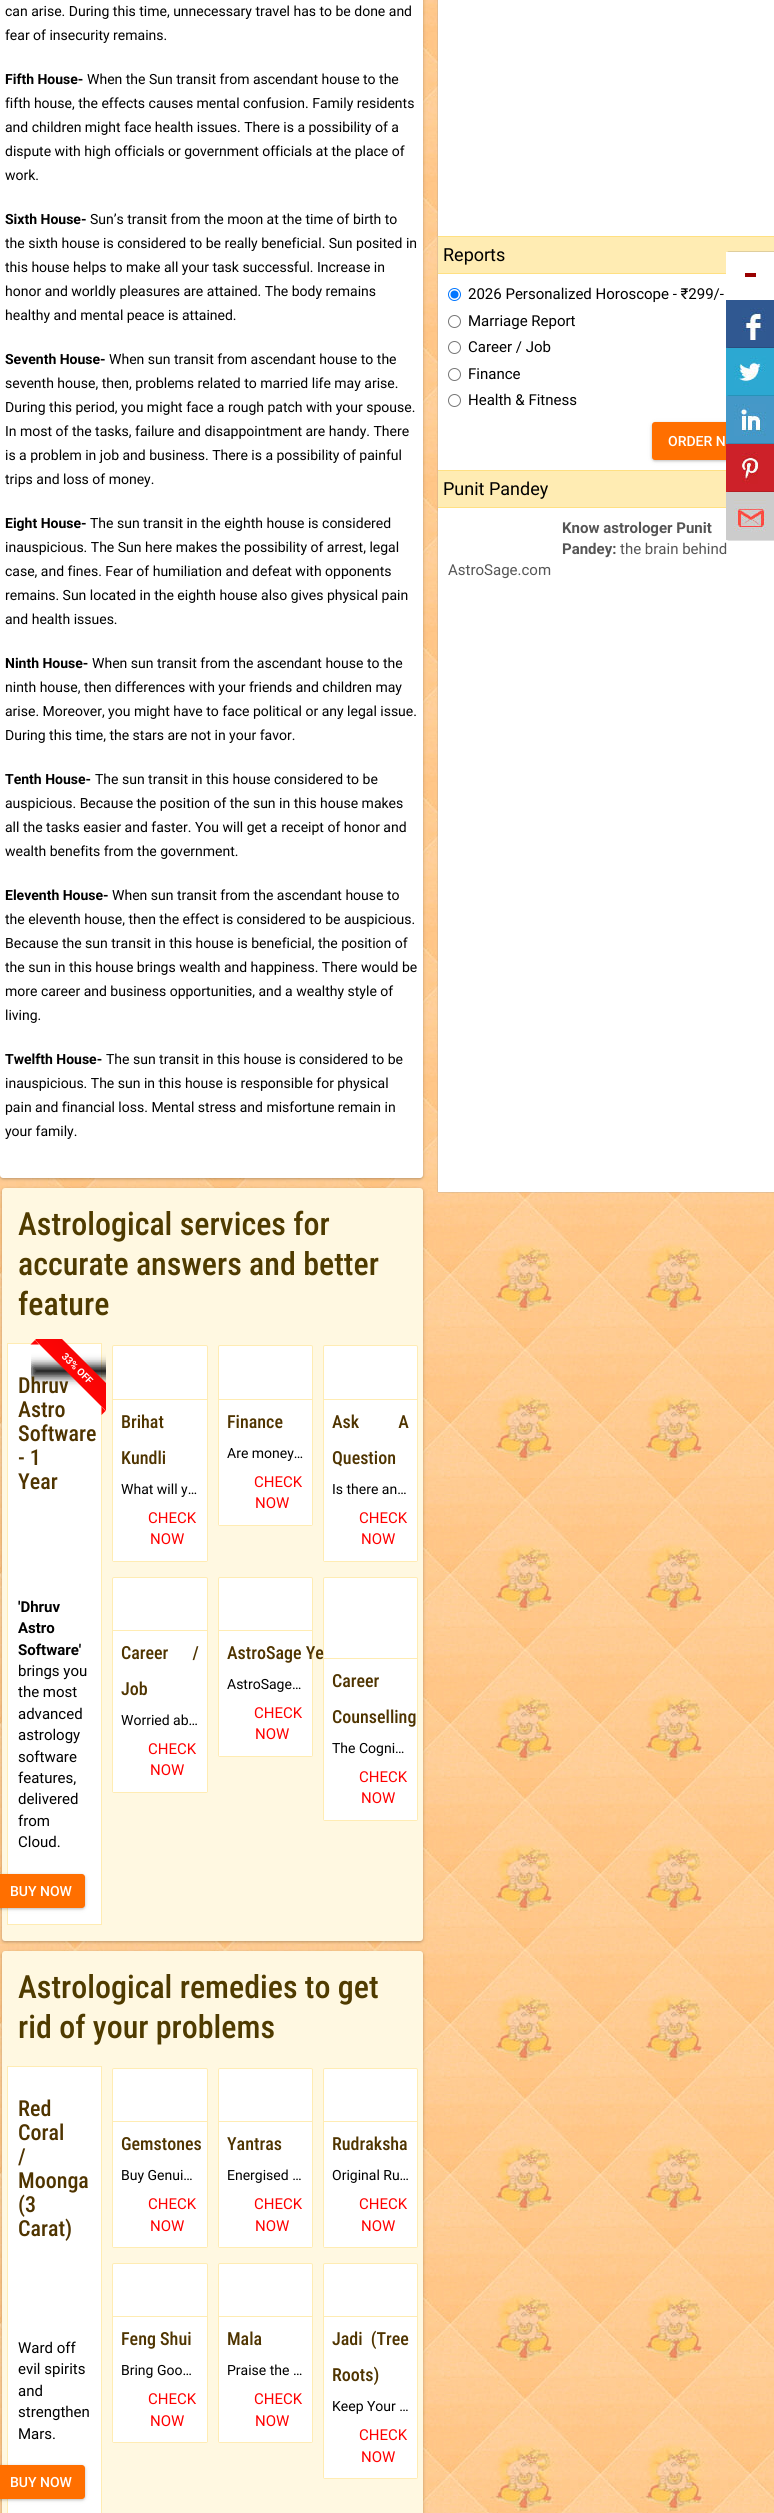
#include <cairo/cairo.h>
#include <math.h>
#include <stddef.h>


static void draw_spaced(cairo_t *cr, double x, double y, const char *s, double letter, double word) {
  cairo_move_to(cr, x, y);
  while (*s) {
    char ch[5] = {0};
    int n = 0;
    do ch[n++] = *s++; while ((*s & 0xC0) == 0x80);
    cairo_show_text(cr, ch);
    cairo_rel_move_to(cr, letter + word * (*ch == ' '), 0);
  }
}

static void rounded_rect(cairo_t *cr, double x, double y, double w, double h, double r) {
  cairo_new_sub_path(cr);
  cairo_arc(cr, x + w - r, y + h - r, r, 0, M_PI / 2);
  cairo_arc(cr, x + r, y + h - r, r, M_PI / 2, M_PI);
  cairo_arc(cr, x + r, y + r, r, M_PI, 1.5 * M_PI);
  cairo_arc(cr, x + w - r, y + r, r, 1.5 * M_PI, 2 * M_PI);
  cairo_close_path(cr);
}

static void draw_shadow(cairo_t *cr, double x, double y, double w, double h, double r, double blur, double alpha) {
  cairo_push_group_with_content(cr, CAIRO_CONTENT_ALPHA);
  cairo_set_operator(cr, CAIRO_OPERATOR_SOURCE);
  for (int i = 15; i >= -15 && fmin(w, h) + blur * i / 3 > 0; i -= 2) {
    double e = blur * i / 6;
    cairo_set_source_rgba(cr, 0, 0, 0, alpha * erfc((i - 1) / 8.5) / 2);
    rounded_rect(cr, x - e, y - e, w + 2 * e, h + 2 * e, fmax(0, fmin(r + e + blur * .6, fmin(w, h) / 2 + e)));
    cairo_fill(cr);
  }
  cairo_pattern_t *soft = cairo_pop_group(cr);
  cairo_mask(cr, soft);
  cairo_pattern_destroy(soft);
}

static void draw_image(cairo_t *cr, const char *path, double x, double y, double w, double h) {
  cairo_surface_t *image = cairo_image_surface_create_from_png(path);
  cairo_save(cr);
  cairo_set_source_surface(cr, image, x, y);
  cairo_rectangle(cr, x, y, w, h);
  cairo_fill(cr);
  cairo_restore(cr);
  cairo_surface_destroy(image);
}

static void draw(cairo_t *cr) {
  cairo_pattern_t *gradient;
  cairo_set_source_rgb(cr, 1, 1, 1);
  cairo_paint(cr);
  draw_image(cr, "images/1.png", 0, 0, 774, 2513);
  cairo_set_source_rgb(cr, 0, 0, 0);
  draw_shadow(cr, 0, -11, 423, 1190, 3, 2.5, 0.12);
  draw_shadow(cr, 0, -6, 423, 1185, 3, 1, 0.16);
  cairo_set_source_rgb(cr, 1, 1, 1);
  rounded_rect(cr, 0, -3, 423, 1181, 3);
  cairo_fill(cr);
  cairo_set_source_rgb(cr, 0, 0, 0);
  draw_shadow(cr, 2, 1189, 421, 753, 3, 2.5, 0.12);
  draw_shadow(cr, 2, 1189, 421, 753, 3, 1, 0.16);
  cairo_set_source_rgb(cr, 1, 248 / 255.0, 225 / 255.0);
  rounded_rect(cr, 2, 1188, 421, 753, 3);
  cairo_fill(cr);
  cairo_set_source_rgb(cr, 1, 1, 1);
  cairo_rectangle(cr, 7.5, 1343.5, 94, 581);
  cairo_fill_preserve(cr);
  cairo_set_source_rgb(cr, 1, 236 / 255.0, 179 / 255.0);
  cairo_set_line_width(cr, 1);
  cairo_stroke(cr);
  cairo_set_source_rgb(cr, 1, 1, 1);
  rounded_rect(cr, 112.5, 1345.5, 95, 216, 1.5);
  cairo_fill_preserve(cr);
  cairo_set_source_rgb(cr, 1, 236 / 255.0, 179 / 255.0);
  cairo_stroke(cr);
  cairo_save(cr);
  cairo_rectangle(cr, 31, 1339, 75, 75);
  cairo_clip(cr);
  cairo_set_source_rgb(cr, 0, 0, 0);
  draw_shadow(cr, 32, 1366, 90, 10, 0, 5, 1);
  cairo_restore(cr);
  cairo_set_source_rgb(cr, 0, 0, 0);
  draw_shadow(cr, -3, 1875, 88, 34, 3, 2.5, 0.12);
  draw_shadow(cr, -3, 1875, 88, 34, 3, 1, 0.16);
  cairo_set_source_rgb(cr, 1, 111 / 255.0, 0);
  cairo_new_path(cr);
  cairo_move_to(cr, 0, 1874);
  cairo_line_to(cr, 82, 1874);
  cairo_curve_to(cr, 83.5, 1874, 85, 1875.5, 85, 1877);
  cairo_line_to(cr, 85, 1905);
  cairo_curve_to(cr, 85, 1906.5, 83.5, 1908, 82, 1908);
  cairo_line_to(cr, 0, 1908);
  cairo_close_path(cr);
  cairo_fill(cr);
  cairo_set_source_rgb(cr, 1, 236 / 255.0, 179 / 255.0);
  cairo_rectangle(cr, 113, 1399, 94, 1);
  cairo_fill(cr);
  cairo_set_source_rgb(cr, 1, 1, 1);
  cairo_rectangle(cr, 113, 1560, 94, 1);
  cairo_fill(cr);
  rounded_rect(cr, 218.5, 1345.5, 94, 180, 1.5);
  cairo_fill_preserve(cr);
  cairo_set_source_rgb(cr, 1, 236 / 255.0, 179 / 255.0);
  cairo_stroke(cr);
  cairo_rectangle(cr, 219, 1399, 93, 1);
  cairo_fill(cr);
  cairo_set_source_rgb(cr, 1, 1, 1);
  cairo_rectangle(cr, 219, 1524, 93, 1);
  cairo_fill(cr);
  rounded_rect(cr, 323.5, 1345.5, 94, 216, 1.5);
  cairo_fill_preserve(cr);
  cairo_set_source_rgb(cr, 1, 236 / 255.0, 179 / 255.0);
  cairo_stroke(cr);
  cairo_rectangle(cr, 324, 1399, 93, 1);
  cairo_fill(cr);
  cairo_set_source_rgb(cr, 1, 1, 1);
  cairo_rectangle(cr, 324, 1560, 93, 1);
  cairo_fill(cr);
  rounded_rect(cr, 112.5, 1577.5, 95, 215, 1.5);
  cairo_fill_preserve(cr);
  cairo_set_source_rgb(cr, 1, 236 / 255.0, 179 / 255.0);
  cairo_stroke(cr);
  cairo_rectangle(cr, 113, 1630, 94, 1);
  cairo_fill(cr);
  cairo_set_source_rgb(cr, 1, 1, 1);
  cairo_rectangle(cr, 113, 1791, 94, 1);
  cairo_fill(cr);
  rounded_rect(cr, 218.5, 1577.5, 94, 179, 1.5);
  cairo_fill_preserve(cr);
  cairo_set_source_rgb(cr, 1, 236 / 255.0, 179 / 255.0);
  cairo_stroke(cr);
  cairo_rectangle(cr, 219, 1630, 93, 1);
  cairo_fill(cr);
  cairo_set_source_rgb(cr, 1, 1, 1);
  cairo_rectangle(cr, 219, 1755, 93, 1);
  cairo_fill(cr);
  rounded_rect(cr, 323.5, 1577.5, 94, 243, 1.5);
  cairo_fill_preserve(cr);
  cairo_set_source_rgb(cr, 1, 236 / 255.0, 179 / 255.0);
  cairo_stroke(cr);
  cairo_rectangle(cr, 324, 1658, 93, 1);
  cairo_fill(cr);
  cairo_set_source_rgb(cr, 1, 1, 1);
  cairo_rectangle(cr, 324, 1819, 93, 1);
  cairo_fill(cr);
  cairo_set_source_rgb(cr, 0, 0, 0);
  draw_shadow(cr, 2, 1952, 421, 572, 3, 2.5, 0.12);
  draw_shadow(cr, 2, 1952, 421, 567, 3, 1, 0.16);
  cairo_set_source_rgb(cr, 1, 248 / 255.0, 225 / 255.0);
  rounded_rect(cr, 2, 1951, 421, 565, 3);
  cairo_fill(cr);
  cairo_set_source_rgb(cr, 1, 1, 1);
  cairo_rectangle(cr, 7.5, 2066.5, 94, 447);
  cairo_fill_preserve(cr);
  cairo_set_source_rgb(cr, 1, 236 / 255.0, 179 / 255.0);
  cairo_stroke(cr);
  cairo_set_source_rgb(cr, 0, 0, 0);
  draw_shadow(cr, -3, 2466, 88, 34, 3, 2.5, 0.12);
  draw_shadow(cr, -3, 2466, 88, 34, 3, 1, 0.16);
  cairo_set_source_rgb(cr, 1, 111 / 255.0, 0);
  cairo_new_path(cr);
  cairo_move_to(cr, 0, 2465);
  cairo_line_to(cr, 82, 2465);
  cairo_curve_to(cr, 83.5, 2465, 85, 2466.5, 85, 2468);
  cairo_line_to(cr, 85, 2496);
  cairo_curve_to(cr, 85, 2497.5, 83.5, 2499, 82, 2499);
  cairo_line_to(cr, 0, 2499);
  cairo_close_path(cr);
  cairo_fill(cr);
  cairo_set_source_rgb(cr, 1, 1, 1);
  rounded_rect(cr, 112.5, 2068.5, 95, 179, 1.5);
  cairo_fill_preserve(cr);
  cairo_set_source_rgb(cr, 1, 236 / 255.0, 179 / 255.0);
  cairo_stroke(cr);
  cairo_rectangle(cr, 113, 2121, 94, 1);
  cairo_fill(cr);
  cairo_set_source_rgb(cr, 1, 1, 1);
  cairo_rectangle(cr, 113, 2246, 94, 1);
  cairo_fill(cr);
  rounded_rect(cr, 218.5, 2068.5, 94, 179, 1.5);
  cairo_fill_preserve(cr);
  cairo_set_source_rgb(cr, 1, 236 / 255.0, 179 / 255.0);
  cairo_stroke(cr);
  cairo_rectangle(cr, 219, 2121, 93, 1);
  cairo_fill(cr);
  cairo_set_source_rgb(cr, 1, 1, 1);
  cairo_rectangle(cr, 219, 2246, 93, 1);
  cairo_fill(cr);
  rounded_rect(cr, 323.5, 2068.5, 94, 179, 1.5);
  cairo_fill_preserve(cr);
  cairo_set_source_rgb(cr, 1, 236 / 255.0, 179 / 255.0);
  cairo_stroke(cr);
  cairo_rectangle(cr, 324, 2121, 93, 1);
  cairo_fill(cr);
  cairo_set_source_rgb(cr, 1, 1, 1);
  cairo_rectangle(cr, 324, 2246, 93, 1);
  cairo_fill(cr);
  rounded_rect(cr, 112.5, 2263.5, 95, 179, 1.5);
  cairo_fill_preserve(cr);
  cairo_set_source_rgb(cr, 1, 236 / 255.0, 179 / 255.0);
  cairo_stroke(cr);
  cairo_rectangle(cr, 113, 2316, 94, 1);
  cairo_fill(cr);
  cairo_set_source_rgb(cr, 1, 1, 1);
  cairo_rectangle(cr, 113, 2441, 94, 1);
  cairo_fill(cr);
  rounded_rect(cr, 218.5, 2263.5, 94, 179, 1.5);
  cairo_fill_preserve(cr);
  cairo_set_source_rgb(cr, 1, 236 / 255.0, 179 / 255.0);
  cairo_stroke(cr);
  cairo_rectangle(cr, 219, 2316, 93, 1);
  cairo_fill(cr);
  cairo_set_source_rgb(cr, 1, 1, 1);
  cairo_rectangle(cr, 219, 2441, 93, 1);
  cairo_fill(cr);
  rounded_rect(cr, 323.5, 2263.5, 94, 215, 1.5);
  cairo_fill_preserve(cr);
  cairo_set_source_rgb(cr, 1, 236 / 255.0, 179 / 255.0);
  cairo_stroke(cr);
  cairo_rectangle(cr, 324, 2316, 93, 1);
  cairo_fill(cr);
  cairo_set_source_rgb(cr, 1, 1, 1);
  cairo_rectangle(cr, 324, 2477, 93, 1);
  cairo_fill(cr);
  cairo_set_source_rgb(cr, 153 / 255.0, 153 / 255.0, 153 / 255.0);
  draw_shadow(cr, 438, -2, 336, 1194, 0, 0.5, 1);
  cairo_set_source_rgb(cr, 1, 1, 1);
  cairo_rectangle(cr, 438, 0, 336, 1192);
  cairo_fill(cr);
  cairo_set_source_rgb(cr, 1, 224 / 255.0, 130 / 255.0);
  cairo_rectangle(cr, 438, 236, 336, 1);
  cairo_fill(cr);
  cairo_set_source_rgb(cr, 1, 236 / 255.0, 179 / 255.0);
  cairo_rectangle(cr, 438, 237, 336, 36);
  cairo_fill(cr);
  cairo_set_source_rgb(cr, 1, 224 / 255.0, 130 / 255.0);
  cairo_rectangle(cr, 438, 273, 288, 1);
  cairo_fill(cr);
  cairo_arc(cr, 454.5, 294.5, 6, 0, 2 * M_PI);
  cairo_set_source_rgb(cr, 0, 117 / 255.0, 1);
  cairo_stroke(cr);
  cairo_arc(cr, 454.5, 294.5, 4, 0, 2 * M_PI);
  cairo_fill(cr);
  cairo_arc(cr, 454.5, 321.5, 6, 0, 2 * M_PI);
  cairo_set_source_rgb(cr, 118 / 255.0, 118 / 255.0, 118 / 255.0);
  cairo_stroke(cr);
  cairo_arc(cr, 454.5, 347.5, 6, 0, 2 * M_PI);
  cairo_stroke(cr);
  cairo_arc(cr, 454.5, 374.5, 6, 0, 2 * M_PI);
  cairo_stroke(cr);
  cairo_arc(cr, 454.5, 400.5, 6, 0, 2 * M_PI);
  cairo_stroke(cr);
  cairo_set_source_rgb(cr, 0, 0, 0);
  draw_shadow(cr, 652, 423, 112, 38, 3, 2.5, 0.12);
  draw_shadow(cr, 652, 423, 112, 38, 3, 1, 0.16);
  cairo_set_source_rgb(cr, 1, 111 / 255.0, 0);
  rounded_rect(cr, 652, 422, 112, 38, 3);
  cairo_fill(cr);
  cairo_set_source_rgb(cr, 1, 224 / 255.0, 130 / 255.0);
  cairo_rectangle(cr, 438, 470, 288, 1);
  cairo_fill(cr);
  cairo_set_source_rgb(cr, 1, 236 / 255.0, 179 / 255.0);
  cairo_rectangle(cr, 438, 471, 288, 36);
  cairo_fill(cr);
  cairo_set_source_rgb(cr, 1, 224 / 255.0, 130 / 255.0);
  cairo_rectangle(cr, 438, 507, 288, 1);
  cairo_fill(cr);
  cairo_set_source_rgb(cr, 0, 0, 0);
  draw_shadow(cr, 728, 252, 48, 48, 0, 0.5, 0.5);
  cairo_set_source_rgb(cr, 1, 1, 1);
  cairo_rectangle(cr, 726, 252, 48, 48);
  cairo_fill(cr);
  cairo_set_source_rgb(cr, 153 / 255.0, 0, 0);
  cairo_rectangle(cr, 745, 273, 11, 4);
  cairo_fill(cr);
  cairo_set_source_rgb(cr, 48 / 255.0, 88 / 255.0, 145 / 255.0);
  cairo_rectangle(cr, 726, 300, 48, 48);
  cairo_fill(cr);
  draw_image(cr, "images/2.png", 742, 308, 24, 32);
  cairo_set_source_rgb(cr, 0, 0, 0);
  draw_shadow(cr, 728, 348, 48, 48, 0, 0.5, 0.5);
  cairo_set_source_rgb(cr, 44 / 255.0, 168 / 255.0, 210 / 255.0);
  cairo_rectangle(cr, 726, 348, 48, 48);
  cairo_fill(cr);
  draw_image(cr, "images/3.png", 734, 356, 32, 32);
  cairo_set_source_rgb(cr, 0, 0, 0);
  draw_shadow(cr, 728, 396, 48, 48, 0, 0.5, 0.5);
  cairo_set_source_rgb(cr, 68 / 255.0, 152 / 255.0, 200 / 255.0);
  cairo_rectangle(cr, 726, 396, 48, 48);
  cairo_fill(cr);
  draw_image(cr, "images/4.png", 734, 404, 32, 32);
  cairo_set_source_rgb(cr, 0, 0, 0);
  draw_shadow(cr, 728, 444, 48, 48, 0, 0.5, 0.5);
  cairo_set_source_rgb(cr, 205 / 255.0, 33 / 255.0, 41 / 255.0);
  cairo_rectangle(cr, 726, 444, 48, 48);
  cairo_fill(cr);
  draw_image(cr, "images/5.png", 742, 452, 16, 32);
  cairo_set_source_rgb(cr, 0, 0, 0);
  draw_shadow(cr, 728, 492, 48, 48, 0, 0.5, 0.5);
  cairo_set_source_rgb(cr, 204 / 255.0, 204 / 255.0, 204 / 255.0);
  cairo_rectangle(cr, 726, 492, 48, 48);
  cairo_fill(cr);
  draw_image(cr, "images/6.png", 734, 500, 32, 32);
  cairo_select_font_face(cr, "Roboto", CAIRO_FONT_SLANT_NORMAL, CAIRO_FONT_WEIGHT_NORMAL);
  cairo_set_font_size(cr, 14);
  cairo_set_source_rgb(cr, 0, 0, 0);
  cairo_move_to(cr, 5, 16);
  cairo_show_text(cr, "can arise. During this time, unnecessary travel has to be done and");
  cairo_move_to(cr, 5, 40);
  cairo_show_text(cr, "fear of insecurity remains.");
  cairo_select_font_face(cr, "Roboto", CAIRO_FONT_SLANT_NORMAL, CAIRO_FONT_WEIGHT_BOLD);
  cairo_move_to(cr, 5, 84);
  cairo_show_text(cr, "Fifth House-");
  cairo_select_font_face(cr, "Roboto", CAIRO_FONT_SLANT_NORMAL, CAIRO_FONT_WEIGHT_NORMAL);
  cairo_move_to(cr, 87, 84);
  cairo_show_text(cr, "When the Sun transit from ascendant house to the");
  cairo_move_to(cr, 5, 108);
  cairo_show_text(cr, "fifth house, the effects causes mental confusion. Family residents");
  cairo_move_to(cr, 5, 132);
  cairo_show_text(cr, "and children might face health issues. There is a possibility of a");
  cairo_move_to(cr, 5, 156);
  cairo_show_text(cr, "dispute with high officials or government officials at the place of");
  cairo_move_to(cr, 5, 180);
  cairo_show_text(cr, "work.");
  cairo_select_font_face(cr, "Roboto", CAIRO_FONT_SLANT_NORMAL, CAIRO_FONT_WEIGHT_BOLD);
  cairo_move_to(cr, 5, 224);
  cairo_show_text(cr, "Sixth House-");
  cairo_select_font_face(cr, "Roboto", CAIRO_FONT_SLANT_NORMAL, CAIRO_FONT_WEIGHT_NORMAL);
  cairo_move_to(cr, 90, 224);
  cairo_show_text(cr, "Sun’s transit from the moon at the time of birth to");
  cairo_move_to(cr, 5, 248);
  cairo_show_text(cr, "the sixth house is considered to be really beneficial. Sun posited in");
  cairo_move_to(cr, 5, 272);
  cairo_show_text(cr, "this house helps to make all your task successful. Increase in");
  cairo_move_to(cr, 5, 296);
  cairo_show_text(cr, "honor and worldly pleasures are attained. The body remains");
  cairo_move_to(cr, 5, 320);
  cairo_show_text(cr, "healthy and mental peace is attained.");
  cairo_select_font_face(cr, "Roboto", CAIRO_FONT_SLANT_NORMAL, CAIRO_FONT_WEIGHT_BOLD);
  cairo_move_to(cr, 5, 364);
  cairo_show_text(cr, "Seventh House-");
  cairo_select_font_face(cr, "Roboto", CAIRO_FONT_SLANT_NORMAL, CAIRO_FONT_WEIGHT_NORMAL);
  cairo_move_to(cr, 109, 364);
  cairo_show_text(cr, "When sun transit from ascendant house to the");
  cairo_move_to(cr, 5, 388);
  cairo_show_text(cr, "seventh house, then, problems related to married life may arise.");
  cairo_move_to(cr, 5, 412);
  cairo_show_text(cr, "During this period, you might face a rough patch with your spouse.");
  cairo_move_to(cr, 5, 436);
  cairo_show_text(cr, "In most of the tasks, failure and disappointment are handy. There");
  cairo_move_to(cr, 5, 460);
  cairo_show_text(cr, "is a problem in job and business. There is a possibility of painful");
  cairo_move_to(cr, 5, 484);
  cairo_show_text(cr, "trips and loss of money.");
  cairo_select_font_face(cr, "Roboto", CAIRO_FONT_SLANT_NORMAL, CAIRO_FONT_WEIGHT_BOLD);
  cairo_move_to(cr, 5, 528);
  cairo_show_text(cr, "Eight House-");
  cairo_select_font_face(cr, "Roboto", CAIRO_FONT_SLANT_NORMAL, CAIRO_FONT_WEIGHT_NORMAL);
  cairo_move_to(cr, 90, 528);
  cairo_show_text(cr, "The sun transit in the eighth house is considered");
  cairo_move_to(cr, 5, 552);
  cairo_show_text(cr, "inauspicious. The Sun here makes the possibility of arrest, legal");
  cairo_move_to(cr, 5, 576);
  cairo_show_text(cr, "case, and fines. Fear of humiliation and defeat with opponents");
  cairo_move_to(cr, 5, 600);
  cairo_show_text(cr, "remains. Sun located in the eighth house also gives physical pain");
  cairo_move_to(cr, 5, 624);
  cairo_show_text(cr, "and health issues.");
  cairo_select_font_face(cr, "Roboto", CAIRO_FONT_SLANT_NORMAL, CAIRO_FONT_WEIGHT_BOLD);
  cairo_move_to(cr, 5, 668);
  cairo_show_text(cr, "Ninth House-");
  cairo_select_font_face(cr, "Roboto", CAIRO_FONT_SLANT_NORMAL, CAIRO_FONT_WEIGHT_NORMAL);
  cairo_move_to(cr, 92, 668);
  cairo_show_text(cr, "When sun transit from the ascendant house to the");
  cairo_move_to(cr, 5, 692);
  cairo_show_text(cr, "ninth house, then differences with your friends and children may");
  cairo_move_to(cr, 5, 716);
  cairo_show_text(cr, "arise. Moreover, you might have to face political or any legal issue.");
  cairo_move_to(cr, 5, 740);
  cairo_show_text(cr, "During this time, the stars are not in your favor.");
  cairo_select_font_face(cr, "Roboto", CAIRO_FONT_SLANT_NORMAL, CAIRO_FONT_WEIGHT_BOLD);
  cairo_move_to(cr, 5, 784);
  cairo_show_text(cr, "Tenth House-");
  cairo_select_font_face(cr, "Roboto", CAIRO_FONT_SLANT_NORMAL, CAIRO_FONT_WEIGHT_NORMAL);
  cairo_move_to(cr, 95, 784);
  cairo_show_text(cr, "The sun transit in this house considered to be");
  cairo_move_to(cr, 5, 808);
  cairo_show_text(cr, "auspicious. Because the position of the sun in this house makes");
  cairo_move_to(cr, 5, 832);
  cairo_show_text(cr, "all the tasks easier and faster. You will get a receipt of honor and");
  cairo_move_to(cr, 5, 856);
  cairo_show_text(cr, "wealth benefits from the government.");
  cairo_select_font_face(cr, "Roboto", CAIRO_FONT_SLANT_NORMAL, CAIRO_FONT_WEIGHT_BOLD);
  cairo_move_to(cr, 5, 900);
  cairo_show_text(cr, "Eleventh House-");
  cairo_select_font_face(cr, "Roboto", CAIRO_FONT_SLANT_NORMAL, CAIRO_FONT_WEIGHT_NORMAL);
  cairo_move_to(cr, 112, 900);
  cairo_show_text(cr, "When sun transit from the ascendant house to");
  cairo_move_to(cr, 5, 924);
  cairo_show_text(cr, "the eleventh house, then the effect is considered to be auspicious.");
  cairo_move_to(cr, 5, 948);
  cairo_show_text(cr, "Because the sun transit in this house is beneficial, the position of");
  cairo_move_to(cr, 5, 972);
  cairo_show_text(cr, "the sun in this house brings wealth and happiness. There would be");
  cairo_move_to(cr, 5, 996);
  cairo_show_text(cr, "more career and business opportunities, and a wealthy style of");
  cairo_move_to(cr, 5, 1020);
  cairo_show_text(cr, "living.");
  cairo_select_font_face(cr, "Roboto", CAIRO_FONT_SLANT_NORMAL, CAIRO_FONT_WEIGHT_BOLD);
  cairo_move_to(cr, 5, 1064);
  cairo_show_text(cr, "Twelfth House-");
  cairo_select_font_face(cr, "Roboto", CAIRO_FONT_SLANT_NORMAL, CAIRO_FONT_WEIGHT_NORMAL);
  cairo_move_to(cr, 106, 1064);
  cairo_show_text(cr, "The sun transit in this house is considered to be");
  cairo_move_to(cr, 5, 1088);
  cairo_show_text(cr, "inauspicious. The sun in this house is responsible for physical");
  cairo_move_to(cr, 5, 1112);
  cairo_show_text(cr, "pain and financial loss. Mental stress and misfortune remain in");
  cairo_move_to(cr, 5, 1136);
  cairo_show_text(cr, "your family.");
  cairo_select_font_face(cr, "Roboto Condensed Medium", CAIRO_FONT_SLANT_NORMAL, CAIRO_FONT_WEIGHT_NORMAL);
  cairo_set_font_size(cr, 32);
  cairo_set_source_rgb(cr, 79 / 255.0, 59 / 255.0, 0);
  cairo_move_to(cr, 18, 1235);
  cairo_show_text(cr, "Astrological services for");
  cairo_move_to(cr, 18, 1275);
  cairo_show_text(cr, "accurate answers and better");
  cairo_move_to(cr, 18, 1315);
  cairo_show_text(cr, "feature");
  cairo_set_font_size(cr, 22);
  cairo_set_source_rgb(cr, 79 / 255.0, 52 / 255.0, 0);
  cairo_move_to(cr, 18, 1393);
  cairo_show_text(cr, "Dhruv");
  cairo_move_to(cr, 18, 1417);
  cairo_show_text(cr, "Astro");
  cairo_save(cr);
  cairo_rectangle(cr, 31, 1339, 75, 75);
  cairo_clip(cr);
  gradient = cairo_pattern_create_linear(84, 1361, 70, 1375);
  cairo_pattern_add_color_stop_rgba(gradient, 0, 247 / 255.0, 5 / 255.0, 5 / 255.0, 1);
  cairo_pattern_add_color_stop_rgba(gradient, 1, 1, 5 / 255.0, 5 / 255.0, 1);
  cairo_set_source(cr, gradient);
  cairo_pattern_destroy(gradient);
  cairo_new_path(cr);
  cairo_move_to(cr, 49, 1326);
  cairo_line_to(cr, 120, 1397);
  cairo_line_to(cr, 106, 1411);
  cairo_line_to(cr, 35, 1340);
  cairo_close_path(cr);
  cairo_fill(cr);
  cairo_restore(cr);
  cairo_select_font_face(cr, "Roboto", CAIRO_FONT_SLANT_NORMAL, CAIRO_FONT_WEIGHT_BOLD);
  cairo_set_font_size(cr, 10);
  cairo_set_source_rgb(cr, 1, 1, 1);
  cairo_save(cr);
  cairo_translate(cr, 61, 1357);
  cairo_rotate(cr, 45 * M_PI / 180);
  cairo_move_to(cr, 0, 0);
  cairo_show_text(cr, "33% OFF");
  cairo_restore(cr);
  cairo_set_source_rgb(cr, 1, 5 / 255.0, 5 / 255.0);
  cairo_new_path(cr);
  cairo_move_to(cr, 101.5, 1406.5);
  cairo_line_to(cr, 105.5, 1411);
  cairo_line_to(cr, 101.5, 1411);
  cairo_close_path(cr);
  cairo_move_to(cr, 105.5, 1411);
  cairo_line_to(cr, 101.5, 1415);
  cairo_line_to(cr, 101.5, 1411);
  cairo_close_path(cr);
  cairo_fill(cr);
  cairo_new_path(cr);
  cairo_move_to(cr, 35, 1340);
  cairo_line_to(cr, 39, 1344.5);
  cairo_line_to(cr, 35, 1344.5);
  cairo_close_path(cr);
  cairo_move_to(cr, 30.5, 1344.5);
  cairo_line_to(cr, 35, 1340);
  cairo_line_to(cr, 35, 1344.5);
  cairo_close_path(cr);
  cairo_fill(cr);
  cairo_select_font_face(cr, "Roboto Condensed Medium", CAIRO_FONT_SLANT_NORMAL, CAIRO_FONT_WEIGHT_NORMAL);
  cairo_set_font_size(cr, 22);
  cairo_set_source_rgb(cr, 79 / 255.0, 52 / 255.0, 0);
  cairo_move_to(cr, 18, 1441);
  cairo_show_text(cr, "Software");
  cairo_move_to(cr, 18, 1465);
  cairo_show_text(cr, "- 1");
  cairo_move_to(cr, 18, 1489);
  cairo_show_text(cr, "Year");
  cairo_select_font_face(cr, "Roboto", CAIRO_FONT_SLANT_NORMAL, CAIRO_FONT_WEIGHT_BOLD);
  cairo_set_font_size(cr, 15);
  cairo_set_source_rgb(cr, 0, 0, 0);
  cairo_move_to(cr, 18, 1612);
  cairo_show_text(cr, "'Dhruv");
  cairo_move_to(cr, 18, 1633);
  cairo_show_text(cr, "Astro");
  cairo_move_to(cr, 18, 1655);
  cairo_show_text(cr, "Software'");
  cairo_select_font_face(cr, "Roboto", CAIRO_FONT_SLANT_NORMAL, CAIRO_FONT_WEIGHT_NORMAL);
  cairo_move_to(cr, 18, 1676);
  cairo_show_text(cr, "brings you");
  cairo_move_to(cr, 18, 1697);
  cairo_show_text(cr, "the most");
  cairo_move_to(cr, 18, 1719);
  cairo_show_text(cr, "advanced");
  cairo_move_to(cr, 18, 1740);
  cairo_show_text(cr, "astrology");
  cairo_move_to(cr, 18, 1762);
  cairo_show_text(cr, "software");
  cairo_move_to(cr, 18, 1783);
  cairo_show_text(cr, "features,");
  cairo_move_to(cr, 18, 1804);
  cairo_show_text(cr, "delivered");
  cairo_move_to(cr, 18, 1826);
  cairo_show_text(cr, "from");
  cairo_move_to(cr, 18, 1847);
  cairo_show_text(cr, "Cloud.");
  cairo_select_font_face(cr, "Roboto Medium", CAIRO_FONT_SLANT_NORMAL, CAIRO_FONT_WEIGHT_NORMAL);
  cairo_set_font_size(cr, 14);
  cairo_set_source_rgb(cr, 1, 1, 1);
  cairo_move_to(cr, 10, 1896);
  cairo_show_text(cr, "BUY NOW");
  cairo_select_font_face(cr, "Roboto Condensed Medium", CAIRO_FONT_SLANT_NORMAL, CAIRO_FONT_WEIGHT_NORMAL);
  cairo_set_font_size(cr, 18);
  cairo_set_source_rgb(cr, 79 / 255.0, 52 / 255.0, 0);
  cairo_move_to(cr, 121, 1428);
  cairo_show_text(cr, "Brihat");
  cairo_move_to(cr, 121, 1464);
  cairo_show_text(cr, "Kundli");
  cairo_select_font_face(cr, "Roboto", CAIRO_FONT_SLANT_NORMAL, CAIRO_FONT_WEIGHT_NORMAL);
  cairo_set_font_size(cr, 14);
  cairo_set_source_rgb(cr, 0, 0, 0);
  cairo_move_to(cr, 121, 1494);
  cairo_show_text(cr, "What will y…");
  cairo_set_font_size(cr, 15);
  cairo_set_source_rgb(cr, 1, 0, 0);
  cairo_move_to(cr, 148, 1523);
  cairo_show_text(cr, "CHECK");
  cairo_move_to(cr, 150, 1544);
  cairo_show_text(cr, "NOW");
  cairo_select_font_face(cr, "Roboto Condensed Medium", CAIRO_FONT_SLANT_NORMAL, CAIRO_FONT_WEIGHT_NORMAL);
  cairo_set_font_size(cr, 18);
  cairo_set_source_rgb(cr, 79 / 255.0, 52 / 255.0, 0);
  cairo_move_to(cr, 227, 1428);
  cairo_show_text(cr, "Finance");
  cairo_select_font_face(cr, "Roboto", CAIRO_FONT_SLANT_NORMAL, CAIRO_FONT_WEIGHT_NORMAL);
  cairo_set_font_size(cr, 14);
  cairo_set_source_rgb(cr, 0, 0, 0);
  cairo_move_to(cr, 227, 1458);
  cairo_show_text(cr, "Are money…");
  cairo_set_font_size(cr, 15);
  cairo_set_source_rgb(cr, 1, 0, 0);
  cairo_move_to(cr, 254, 1487);
  cairo_show_text(cr, "CHECK");
  cairo_move_to(cr, 255, 1508);
  cairo_show_text(cr, "NOW");
  cairo_select_font_face(cr, "Roboto Condensed Medium", CAIRO_FONT_SLANT_NORMAL, CAIRO_FONT_WEIGHT_NORMAL);
  cairo_set_font_size(cr, 18);
  cairo_set_source_rgb(cr, 79 / 255.0, 52 / 255.0, 0);
  draw_spaced(cr, 332, 1428, "Ask A", 0, 35);
  cairo_move_to(cr, 332, 1464);
  cairo_show_text(cr, "Question");
  cairo_select_font_face(cr, "Roboto", CAIRO_FONT_SLANT_NORMAL, CAIRO_FONT_WEIGHT_NORMAL);
  cairo_set_font_size(cr, 14);
  cairo_set_source_rgb(cr, 0, 0, 0);
  cairo_move_to(cr, 332, 1494);
  cairo_show_text(cr, "Is there an…");
  cairo_set_font_size(cr, 15);
  cairo_set_source_rgb(cr, 1, 0, 0);
  cairo_move_to(cr, 359, 1523);
  cairo_show_text(cr, "CHECK");
  cairo_move_to(cr, 361, 1544);
  cairo_show_text(cr, "NOW");
  cairo_select_font_face(cr, "Roboto Condensed Medium", CAIRO_FONT_SLANT_NORMAL, CAIRO_FONT_WEIGHT_NORMAL);
  cairo_set_font_size(cr, 18);
  cairo_set_source_rgb(cr, 79 / 255.0, 52 / 255.0, 0);
  draw_spaced(cr, 121, 1659, "Career /", 0, 20);
  cairo_move_to(cr, 121, 1695);
  cairo_show_text(cr, "Job");
  cairo_select_font_face(cr, "Roboto", CAIRO_FONT_SLANT_NORMAL, CAIRO_FONT_WEIGHT_NORMAL);
  cairo_set_font_size(cr, 14);
  cairo_set_source_rgb(cr, 0, 0, 0);
  cairo_move_to(cr, 121, 1725);
  cairo_show_text(cr, "Worried ab…");
  cairo_set_font_size(cr, 15);
  cairo_set_source_rgb(cr, 1, 0, 0);
  cairo_move_to(cr, 148, 1754);
  cairo_show_text(cr, "CHECK");
  cairo_move_to(cr, 150, 1775);
  cairo_show_text(cr, "NOW");
  cairo_select_font_face(cr, "Roboto Condensed Medium", CAIRO_FONT_SLANT_NORMAL, CAIRO_FONT_WEIGHT_NORMAL);
  cairo_set_font_size(cr, 18);
  cairo_set_source_rgb(cr, 79 / 255.0, 52 / 255.0, 0);
  cairo_move_to(cr, 227, 1659);
  cairo_show_text(cr, "AstroSage Ye");
  cairo_select_font_face(cr, "Roboto", CAIRO_FONT_SLANT_NORMAL, CAIRO_FONT_WEIGHT_NORMAL);
  cairo_set_font_size(cr, 14);
  cairo_set_source_rgb(cr, 0, 0, 0);
  cairo_move_to(cr, 227, 1689);
  cairo_show_text(cr, "AstroSage…");
  cairo_set_font_size(cr, 15);
  cairo_set_source_rgb(cr, 1, 0, 0);
  cairo_move_to(cr, 254, 1718);
  cairo_show_text(cr, "CHECK");
  cairo_move_to(cr, 255, 1739);
  cairo_show_text(cr, "NOW");
  cairo_select_font_face(cr, "Roboto Condensed Medium", CAIRO_FONT_SLANT_NORMAL, CAIRO_FONT_WEIGHT_NORMAL);
  cairo_set_font_size(cr, 18);
  cairo_set_source_rgb(cr, 79 / 255.0, 52 / 255.0, 0);
  cairo_move_to(cr, 332, 1687);
  cairo_show_text(cr, "Career");
  cairo_move_to(cr, 332, 1723);
  cairo_show_text(cr, "Counselling");
  cairo_select_font_face(cr, "Roboto", CAIRO_FONT_SLANT_NORMAL, CAIRO_FONT_WEIGHT_NORMAL);
  cairo_set_font_size(cr, 14);
  cairo_set_source_rgb(cr, 0, 0, 0);
  cairo_move_to(cr, 332, 1753);
  cairo_show_text(cr, "The Cogni…");
  cairo_set_font_size(cr, 15);
  cairo_set_source_rgb(cr, 1, 0, 0);
  cairo_move_to(cr, 359, 1782);
  cairo_show_text(cr, "CHECK");
  cairo_move_to(cr, 361, 1803);
  cairo_show_text(cr, "NOW");
  cairo_select_font_face(cr, "Roboto Condensed Medium", CAIRO_FONT_SLANT_NORMAL, CAIRO_FONT_WEIGHT_NORMAL);
  cairo_set_font_size(cr, 32);
  cairo_set_source_rgb(cr, 79 / 255.0, 59 / 255.0, 0);
  cairo_move_to(cr, 18, 1998);
  cairo_show_text(cr, "Astrological remedies to get");
  cairo_move_to(cr, 18, 2038);
  cairo_show_text(cr, "rid of your problems");
  cairo_set_font_size(cr, 22);
  cairo_set_source_rgb(cr, 79 / 255.0, 52 / 255.0, 0);
  cairo_move_to(cr, 18, 2116);
  cairo_show_text(cr, "Red");
  cairo_move_to(cr, 18, 2140);
  cairo_show_text(cr, "Coral");
  cairo_move_to(cr, 18, 2164);
  cairo_show_text(cr, "/");
  cairo_move_to(cr, 18, 2188);
  cairo_show_text(cr, "Moonga");
  cairo_move_to(cr, 18, 2212);
  cairo_show_text(cr, "(3");
  cairo_move_to(cr, 18, 2236);
  cairo_show_text(cr, "Carat)");
  cairo_select_font_face(cr, "Roboto", CAIRO_FONT_SLANT_NORMAL, CAIRO_FONT_WEIGHT_NORMAL);
  cairo_set_font_size(cr, 15);
  cairo_set_source_rgb(cr, 0, 0, 0);
  cairo_move_to(cr, 18, 2353);
  cairo_show_text(cr, "Ward off");
  cairo_move_to(cr, 18, 2374);
  cairo_show_text(cr, "evil spirits");
  cairo_move_to(cr, 18, 2396);
  cairo_show_text(cr, "and");
  cairo_move_to(cr, 18, 2417);
  cairo_show_text(cr, "strengthen");
  cairo_move_to(cr, 18, 2439);
  cairo_show_text(cr, "Mars.");
  cairo_select_font_face(cr, "Roboto Medium", CAIRO_FONT_SLANT_NORMAL, CAIRO_FONT_WEIGHT_NORMAL);
  cairo_set_font_size(cr, 14);
  cairo_set_source_rgb(cr, 1, 1, 1);
  cairo_move_to(cr, 10, 2487);
  cairo_show_text(cr, "BUY NOW");
  cairo_select_font_face(cr, "Roboto Condensed Medium", CAIRO_FONT_SLANT_NORMAL, CAIRO_FONT_WEIGHT_NORMAL);
  cairo_set_font_size(cr, 18);
  cairo_set_source_rgb(cr, 79 / 255.0, 52 / 255.0, 0);
  cairo_move_to(cr, 121, 2150);
  cairo_show_text(cr, "Gemstones");
  cairo_select_font_face(cr, "Roboto", CAIRO_FONT_SLANT_NORMAL, CAIRO_FONT_WEIGHT_NORMAL);
  cairo_set_font_size(cr, 14);
  cairo_set_source_rgb(cr, 0, 0, 0);
  cairo_move_to(cr, 121, 2180);
  cairo_show_text(cr, "Buy Genui…");
  cairo_set_font_size(cr, 15);
  cairo_set_source_rgb(cr, 1, 0, 0);
  cairo_move_to(cr, 148, 2209);
  cairo_show_text(cr, "CHECK");
  cairo_move_to(cr, 150, 2231);
  cairo_show_text(cr, "NOW");
  cairo_select_font_face(cr, "Roboto Condensed Medium", CAIRO_FONT_SLANT_NORMAL, CAIRO_FONT_WEIGHT_NORMAL);
  cairo_set_font_size(cr, 18);
  cairo_set_source_rgb(cr, 79 / 255.0, 52 / 255.0, 0);
  cairo_move_to(cr, 227, 2150);
  cairo_show_text(cr, "Yantras");
  cairo_select_font_face(cr, "Roboto", CAIRO_FONT_SLANT_NORMAL, CAIRO_FONT_WEIGHT_NORMAL);
  cairo_set_font_size(cr, 14);
  cairo_set_source_rgb(cr, 0, 0, 0);
  cairo_move_to(cr, 227, 2180);
  cairo_show_text(cr, "Energised …");
  cairo_set_font_size(cr, 15);
  cairo_set_source_rgb(cr, 1, 0, 0);
  cairo_move_to(cr, 254, 2209);
  cairo_show_text(cr, "CHECK");
  cairo_move_to(cr, 255, 2231);
  cairo_show_text(cr, "NOW");
  cairo_select_font_face(cr, "Roboto Condensed Medium", CAIRO_FONT_SLANT_NORMAL, CAIRO_FONT_WEIGHT_NORMAL);
  cairo_set_font_size(cr, 18);
  cairo_set_source_rgb(cr, 79 / 255.0, 52 / 255.0, 0);
  cairo_move_to(cr, 332, 2150);
  cairo_show_text(cr, "Rudraksha");
  cairo_select_font_face(cr, "Roboto", CAIRO_FONT_SLANT_NORMAL, CAIRO_FONT_WEIGHT_NORMAL);
  cairo_set_font_size(cr, 14);
  cairo_set_source_rgb(cr, 0, 0, 0);
  cairo_move_to(cr, 332, 2180);
  cairo_show_text(cr, "Original Ru…");
  cairo_set_font_size(cr, 15);
  cairo_set_source_rgb(cr, 1, 0, 0);
  cairo_move_to(cr, 359, 2209);
  cairo_show_text(cr, "CHECK");
  cairo_move_to(cr, 361, 2231);
  cairo_show_text(cr, "NOW");
  cairo_select_font_face(cr, "Roboto Condensed Medium", CAIRO_FONT_SLANT_NORMAL, CAIRO_FONT_WEIGHT_NORMAL);
  cairo_set_font_size(cr, 18);
  cairo_set_source_rgb(cr, 79 / 255.0, 52 / 255.0, 0);
  cairo_move_to(cr, 121, 2345);
  cairo_show_text(cr, "Feng Shui");
  cairo_select_font_face(cr, "Roboto", CAIRO_FONT_SLANT_NORMAL, CAIRO_FONT_WEIGHT_NORMAL);
  cairo_set_font_size(cr, 14);
  cairo_set_source_rgb(cr, 0, 0, 0);
  cairo_move_to(cr, 121, 2375);
  cairo_show_text(cr, "Bring Goo…");
  cairo_set_font_size(cr, 15);
  cairo_set_source_rgb(cr, 1, 0, 0);
  cairo_move_to(cr, 148, 2404);
  cairo_show_text(cr, "CHECK");
  cairo_move_to(cr, 150, 2426);
  cairo_show_text(cr, "NOW");
  cairo_select_font_face(cr, "Roboto Condensed Medium", CAIRO_FONT_SLANT_NORMAL, CAIRO_FONT_WEIGHT_NORMAL);
  cairo_set_font_size(cr, 18);
  cairo_set_source_rgb(cr, 79 / 255.0, 52 / 255.0, 0);
  cairo_move_to(cr, 227, 2345);
  cairo_show_text(cr, "Mala");
  cairo_select_font_face(cr, "Roboto", CAIRO_FONT_SLANT_NORMAL, CAIRO_FONT_WEIGHT_NORMAL);
  cairo_set_font_size(cr, 14);
  cairo_set_source_rgb(cr, 0, 0, 0);
  cairo_move_to(cr, 227, 2375);
  cairo_show_text(cr, "Praise the …");
  cairo_set_font_size(cr, 15);
  cairo_set_source_rgb(cr, 1, 0, 0);
  cairo_move_to(cr, 254, 2404);
  cairo_show_text(cr, "CHECK");
  cairo_move_to(cr, 255, 2426);
  cairo_show_text(cr, "NOW");
  cairo_select_font_face(cr, "Roboto Condensed Medium", CAIRO_FONT_SLANT_NORMAL, CAIRO_FONT_WEIGHT_NORMAL);
  cairo_set_font_size(cr, 18);
  cairo_set_source_rgb(cr, 79 / 255.0, 52 / 255.0, 0);
  draw_spaced(cr, 332, 2345, "Jadi (Tree", 0, 4);
  cairo_move_to(cr, 332, 2381);
  cairo_show_text(cr, "Roots)");
  cairo_select_font_face(cr, "Roboto", CAIRO_FONT_SLANT_NORMAL, CAIRO_FONT_WEIGHT_NORMAL);
  cairo_set_font_size(cr, 14);
  cairo_set_source_rgb(cr, 0, 0, 0);
  cairo_move_to(cr, 332, 2411);
  cairo_show_text(cr, "Keep Your …");
  cairo_set_font_size(cr, 15);
  cairo_set_source_rgb(cr, 1, 0, 0);
  cairo_move_to(cr, 359, 2440);
  cairo_show_text(cr, "CHECK");
  cairo_move_to(cr, 361, 2462);
  cairo_show_text(cr, "NOW");
  cairo_set_font_size(cr, 18);
  cairo_set_source_rgb(cr, 0, 0, 0);
  cairo_move_to(cr, 443, 261);
  cairo_show_text(cr, "Reports");
  cairo_set_font_size(cr, 15);
  cairo_move_to(cr, 468, 299);
  cairo_show_text(cr, "2026 Personalized Horoscope - ₹299/-");
  cairo_move_to(cr, 468, 326);
  cairo_show_text(cr, "Marriage Report");
  cairo_move_to(cr, 468, 352);
  cairo_show_text(cr, "Career / Job");
  cairo_move_to(cr, 468, 379);
  cairo_show_text(cr, "Finance");
  cairo_move_to(cr, 468, 405);
  cairo_show_text(cr, "Health & Fitness");
  cairo_select_font_face(cr, "Roboto Medium", CAIRO_FONT_SLANT_NORMAL, CAIRO_FONT_WEIGHT_NORMAL);
  cairo_set_font_size(cr, 14);
  cairo_set_source_rgb(cr, 1, 1, 1);
  cairo_move_to(cr, 668, 446);
  cairo_show_text(cr, "ORDER N");
  cairo_select_font_face(cr, "Roboto", CAIRO_FONT_SLANT_NORMAL, CAIRO_FONT_WEIGHT_NORMAL);
  cairo_set_font_size(cr, 18);
  cairo_set_source_rgb(cr, 0, 0, 0);
  cairo_move_to(cr, 443, 495);
  cairo_show_text(cr, "Punit Pandey");
  cairo_select_font_face(cr, "Roboto", CAIRO_FONT_SLANT_NORMAL, CAIRO_FONT_WEIGHT_BOLD);
  cairo_set_font_size(cr, 15);
  cairo_set_source_rgb(cr, 85 / 255.0, 85 / 255.0, 85 / 255.0);
  cairo_move_to(cr, 562, 533);
  cairo_show_text(cr, "Know astrologer Punit");
  cairo_move_to(cr, 562, 554);
  cairo_show_text(cr, "Pandey:");
  cairo_select_font_face(cr, "Roboto", CAIRO_FONT_SLANT_NORMAL, CAIRO_FONT_WEIGHT_NORMAL);
  cairo_move_to(cr, 620, 554);
  cairo_show_text(cr, "the brain behind");
  cairo_move_to(cr, 448, 575);
  cairo_show_text(cr, "AstroSage.com");
}

int main(void) {
  cairo_surface_t *surface = cairo_image_surface_create(CAIRO_FORMAT_RGB24, 774, 2513);
  cairo_t *cr = cairo_create(surface);
  cairo_font_options_t *options = cairo_font_options_create();
  cairo_font_options_set_hint_metrics(options, CAIRO_HINT_METRICS_OFF);
  cairo_font_options_set_hint_style(options, CAIRO_HINT_STYLE_NONE);
  cairo_set_font_options(cr, options);
  cairo_set_miter_limit(cr, 4);
  draw(cr);
  cairo_surface_write_to_png(surface, "out.png");
  cairo_font_options_destroy(options);
  cairo_destroy(cr);
  cairo_surface_destroy(surface);
  return 0;
}
